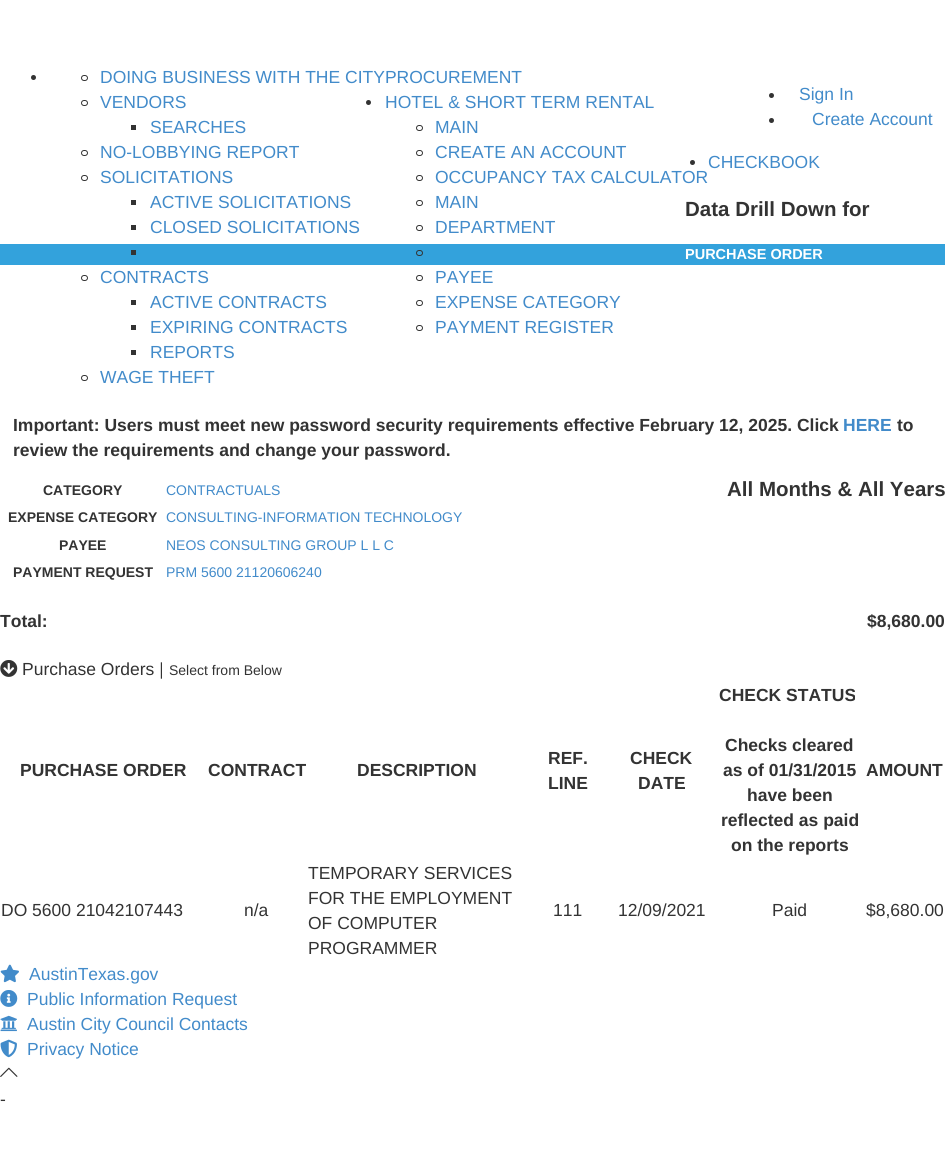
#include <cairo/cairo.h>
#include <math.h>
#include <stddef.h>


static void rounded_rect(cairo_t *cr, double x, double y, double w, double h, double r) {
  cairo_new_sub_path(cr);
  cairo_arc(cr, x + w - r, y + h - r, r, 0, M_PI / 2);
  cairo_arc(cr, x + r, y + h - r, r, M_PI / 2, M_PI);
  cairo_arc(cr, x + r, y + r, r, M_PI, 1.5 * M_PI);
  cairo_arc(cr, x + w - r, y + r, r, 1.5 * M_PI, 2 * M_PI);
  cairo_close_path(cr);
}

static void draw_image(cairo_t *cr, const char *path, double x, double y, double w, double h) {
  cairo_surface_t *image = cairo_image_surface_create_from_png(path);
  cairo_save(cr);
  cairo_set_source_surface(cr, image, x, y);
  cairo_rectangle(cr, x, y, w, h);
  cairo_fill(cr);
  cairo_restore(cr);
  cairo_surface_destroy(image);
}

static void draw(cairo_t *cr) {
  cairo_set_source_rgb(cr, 1, 1, 1);
  cairo_paint(cr);
  cairo_set_source_rgb(cr, 51 / 255.0, 51 / 255.0, 51 / 255.0);
  cairo_arc(cr, 33.5, 77.5, 2.5, 0, 2 * M_PI);
  cairo_fill(cr);
  rounded_rect(cr, 81.5, 75.5, 6, 5, 2.5);
  cairo_set_line_width(cr, 1);
  cairo_stroke(cr);
  rounded_rect(cr, 81.5, 100.5, 6, 5, 2.5);
  cairo_stroke(cr);
  cairo_rectangle(cr, 131, 125, 5, 5);
  cairo_fill(cr);
  rounded_rect(cr, 81.5, 150.5, 6, 5, 2.5);
  cairo_stroke(cr);
  rounded_rect(cr, 81.5, 175.5, 6, 5, 2.5);
  cairo_stroke(cr);
  cairo_rectangle(cr, 131, 200, 5, 5);
  cairo_fill(cr);
  cairo_rectangle(cr, 131, 225, 5, 5);
  cairo_fill(cr);
  cairo_set_source_rgb(cr, 51 / 255.0, 162 / 255.0, 220 / 255.0);
  cairo_rectangle(cr, 0, 244, 945, 21);
  cairo_fill(cr);
  cairo_set_source_rgb(cr, 51 / 255.0, 51 / 255.0, 51 / 255.0);
  cairo_rectangle(cr, 131, 250, 5, 5);
  cairo_fill(cr);
  rounded_rect(cr, 81.5, 275.5, 6, 5, 2.5);
  cairo_stroke(cr);
  cairo_rectangle(cr, 131, 300, 5, 5);
  cairo_fill(cr);
  cairo_rectangle(cr, 131, 325, 5, 5);
  cairo_fill(cr);
  cairo_rectangle(cr, 131, 350, 5, 5);
  cairo_fill(cr);
  rounded_rect(cr, 81.5, 375.5, 6, 5, 2.5);
  cairo_stroke(cr);
  cairo_arc(cr, 368.5, 102.5, 2.5, 0, 2 * M_PI);
  cairo_fill(cr);
  rounded_rect(cr, 416.5, 125.5, 6, 5, 2.5);
  cairo_stroke(cr);
  rounded_rect(cr, 416.5, 150.5, 6, 5, 2.5);
  cairo_stroke(cr);
  rounded_rect(cr, 416.5, 175.5, 6, 5, 2.5);
  cairo_stroke(cr);
  cairo_arc(cr, 692.5, 162.5, 2.5, 0, 2 * M_PI);
  cairo_fill(cr);
  rounded_rect(cr, 416.5, 200.5, 6, 5, 2.5);
  cairo_stroke(cr);
  rounded_rect(cr, 416.5, 225.5, 6, 5, 2.5);
  cairo_stroke(cr);
  rounded_rect(cr, 416.5, 250.5, 6, 5, 2.5);
  cairo_stroke(cr);
  rounded_rect(cr, 416.5, 275.5, 6, 5, 2.5);
  cairo_stroke(cr);
  rounded_rect(cr, 416.5, 300.5, 6, 5, 2.5);
  cairo_stroke(cr);
  rounded_rect(cr, 416.5, 325.5, 6, 5, 2.5);
  cairo_stroke(cr);
  cairo_arc(cr, 771.5, 95.5, 2.5, 0, 2 * M_PI);
  cairo_fill(cr);
  cairo_arc(cr, 771.5, 120.5, 2.5, 0, 2 * M_PI);
  cairo_fill(cr);
  draw_image(cr, "images/1.png", 0, 660, 18, 17);
  draw_image(cr, "images/2.png", 0, 964, 19, 19);
  draw_image(cr, "images/3.png", 0, 990, 18, 17);
  draw_image(cr, "images/4.png", 0, 1015, 17, 17);
  draw_image(cr, "images/5.png", 0, 1039, 17, 19);
  draw_image(cr, "images/6.png", 0, 1067, 18, 10);
  cairo_select_font_face(cr, "Liberation Sans", CAIRO_FONT_SLANT_NORMAL, CAIRO_FONT_WEIGHT_NORMAL);
  cairo_set_font_size(cr, 17.5);
  cairo_set_source_rgb(cr, 66 / 255.0, 139 / 255.0, 202 / 255.0);
  cairo_move_to(cr, 100, 83);
  cairo_show_text(cr, "DOING BUSINESS WITH THE CITYPROCUREMENT");
  cairo_move_to(cr, 100, 108);
  cairo_show_text(cr, "VENDORS");
  cairo_move_to(cr, 150, 133);
  cairo_show_text(cr, "SEARCHES");
  cairo_move_to(cr, 100, 158);
  cairo_show_text(cr, "NO-LOBBYING REPORT");
  cairo_move_to(cr, 100, 183);
  cairo_show_text(cr, "SOLICITATIONS");
  cairo_move_to(cr, 150, 208);
  cairo_show_text(cr, "ACTIVE SOLICITATIONS");
  cairo_move_to(cr, 150, 233);
  cairo_show_text(cr, "CLOSED SOLICITATIONS");
  cairo_move_to(cr, 100, 283);
  cairo_show_text(cr, "CONTRACTS");
  cairo_move_to(cr, 150, 308);
  cairo_show_text(cr, "ACTIVE CONTRACTS");
  cairo_move_to(cr, 150, 333);
  cairo_show_text(cr, "EXPIRING CONTRACTS");
  cairo_move_to(cr, 150, 358);
  cairo_show_text(cr, "REPORTS");
  cairo_move_to(cr, 100, 383);
  cairo_show_text(cr, "WAGE THEFT");
  cairo_move_to(cr, 385, 108);
  cairo_show_text(cr, "HOTEL & SHORT TERM RENTAL");
  cairo_move_to(cr, 435, 133);
  cairo_show_text(cr, "MAIN");
  cairo_move_to(cr, 435, 158);
  cairo_show_text(cr, "CREATE AN ACCOUNT");
  cairo_move_to(cr, 435, 183);
  cairo_show_text(cr, "OCCUPANCY TAX CALCULATOR");
  cairo_move_to(cr, 708, 168);
  cairo_show_text(cr, "CHECKBOOK");
  cairo_move_to(cr, 435, 208);
  cairo_show_text(cr, "MAIN");
  cairo_move_to(cr, 435, 233);
  cairo_show_text(cr, "DEPARTMENT");
  cairo_move_to(cr, 435, 283);
  cairo_show_text(cr, "PAYEE");
  cairo_move_to(cr, 435, 308);
  cairo_show_text(cr, "EXPENSE CATEGORY");
  cairo_move_to(cr, 435, 333);
  cairo_show_text(cr, "PAYMENT REGISTER");
  cairo_move_to(cr, 799, 100);
  cairo_show_text(cr, "Sign In");
  cairo_move_to(cr, 812, 125);
  cairo_show_text(cr, "Create Account");
  cairo_select_font_face(cr, "Liberation Sans", CAIRO_FONT_SLANT_NORMAL, CAIRO_FONT_WEIGHT_BOLD);
  cairo_set_font_size(cr, 20.5);
  cairo_set_source_rgb(cr, 51 / 255.0, 51 / 255.0, 51 / 255.0);
  cairo_move_to(cr, 685, 216);
  cairo_show_text(cr, "Data Drill Down for");
  cairo_move_to(cr, 727, 496);
  cairo_show_text(cr, "All Months & All Years");
  cairo_set_font_size(cr, 14.5);
  cairo_set_source_rgb(cr, 1, 1, 1);
  cairo_move_to(cr, 685, 259);
  cairo_show_text(cr, "PURCHASE ORDER");
  cairo_set_font_size(cr, 14);
  cairo_set_source_rgb(cr, 51 / 255.0, 51 / 255.0, 51 / 255.0);
  cairo_move_to(cr, 43, 495);
  cairo_show_text(cr, "CATEGORY");
  cairo_select_font_face(cr, "Liberation Sans", CAIRO_FONT_SLANT_NORMAL, CAIRO_FONT_WEIGHT_NORMAL);
  cairo_set_source_rgb(cr, 66 / 255.0, 139 / 255.0, 202 / 255.0);
  cairo_move_to(cr, 166, 495);
  cairo_show_text(cr, "CONTRACTUALS");
  cairo_select_font_face(cr, "Liberation Sans", CAIRO_FONT_SLANT_NORMAL, CAIRO_FONT_WEIGHT_BOLD);
  cairo_set_source_rgb(cr, 51 / 255.0, 51 / 255.0, 51 / 255.0);
  cairo_move_to(cr, 8, 522);
  cairo_show_text(cr, "EXPENSE CATEGORY");
  cairo_select_font_face(cr, "Liberation Sans", CAIRO_FONT_SLANT_NORMAL, CAIRO_FONT_WEIGHT_NORMAL);
  cairo_set_source_rgb(cr, 66 / 255.0, 139 / 255.0, 202 / 255.0);
  cairo_move_to(cr, 166, 522);
  cairo_show_text(cr, "CONSULTING-INFORMATION TECHNOLOGY");
  cairo_select_font_face(cr, "Liberation Sans", CAIRO_FONT_SLANT_NORMAL, CAIRO_FONT_WEIGHT_BOLD);
  cairo_set_source_rgb(cr, 51 / 255.0, 51 / 255.0, 51 / 255.0);
  cairo_move_to(cr, 59, 550);
  cairo_show_text(cr, "PAYEE");
  cairo_select_font_face(cr, "Liberation Sans", CAIRO_FONT_SLANT_NORMAL, CAIRO_FONT_WEIGHT_NORMAL);
  cairo_set_source_rgb(cr, 66 / 255.0, 139 / 255.0, 202 / 255.0);
  cairo_move_to(cr, 166, 550);
  cairo_show_text(cr, "NEOS CONSULTING GROUP L L C");
  cairo_select_font_face(cr, "Liberation Sans", CAIRO_FONT_SLANT_NORMAL, CAIRO_FONT_WEIGHT_BOLD);
  cairo_set_source_rgb(cr, 51 / 255.0, 51 / 255.0, 51 / 255.0);
  cairo_move_to(cr, 13, 577);
  cairo_show_text(cr, "PAYMENT REQUEST");
  cairo_select_font_face(cr, "Liberation Sans", CAIRO_FONT_SLANT_NORMAL, CAIRO_FONT_WEIGHT_NORMAL);
  cairo_set_source_rgb(cr, 66 / 255.0, 139 / 255.0, 202 / 255.0);
  cairo_move_to(cr, 166, 577);
  cairo_show_text(cr, "PRM 5600 21120606240");
  cairo_select_font_face(cr, "Liberation Sans", CAIRO_FONT_SLANT_NORMAL, CAIRO_FONT_WEIGHT_BOLD);
  cairo_set_font_size(cr, 17.5);
  cairo_set_source_rgb(cr, 51 / 255.0, 51 / 255.0, 51 / 255.0);
  cairo_move_to(cr, 0, 627);
  cairo_show_text(cr, "Total:");
  cairo_move_to(cr, 867, 627);
  cairo_show_text(cr, "$8,680.00");
  cairo_select_font_face(cr, "Liberation Sans", CAIRO_FONT_SLANT_NORMAL, CAIRO_FONT_WEIGHT_NORMAL);
  cairo_move_to(cr, 22, 675);
  cairo_show_text(cr, "Purchase Orders |");
  cairo_set_font_size(cr, 14);
  cairo_move_to(cr, 169, 675);
  cairo_show_text(cr, "Select from Below");
  cairo_select_font_face(cr, "Liberation Sans", CAIRO_FONT_SLANT_NORMAL, CAIRO_FONT_WEIGHT_BOLD);
  cairo_set_font_size(cr, 17.5);
  cairo_move_to(cr, 20, 776);
  cairo_show_text(cr, "PURCHASE ORDER");
  cairo_move_to(cr, 208, 776);
  cairo_show_text(cr, "CONTRACT");
  cairo_move_to(cr, 357, 776);
  cairo_show_text(cr, "DESCRIPTION");
  cairo_move_to(cr, 548, 764);
  cairo_show_text(cr, "REF.");
  cairo_move_to(cr, 548, 789);
  cairo_show_text(cr, "LINE");
  cairo_move_to(cr, 630, 764);
  cairo_show_text(cr, "CHECK");
  cairo_move_to(cr, 638, 789);
  cairo_show_text(cr, "DATE");
  cairo_move_to(cr, 719, 701);
  cairo_show_text(cr, "CHECK STATUS");
  cairo_move_to(cr, 725, 751);
  cairo_show_text(cr, "Checks cleared");
  cairo_move_to(cr, 723, 776);
  cairo_show_text(cr, "as of 01/31/2015");
  cairo_move_to(cr, 747, 801);
  cairo_show_text(cr, "have been");
  cairo_move_to(cr, 721, 826);
  cairo_show_text(cr, "reflected as paid");
  cairo_move_to(cr, 731, 851);
  cairo_show_text(cr, "on the reports");
  cairo_move_to(cr, 866, 776);
  cairo_show_text(cr, "AMOUNT");
  cairo_select_font_face(cr, "Liberation Sans", CAIRO_FONT_SLANT_NORMAL, CAIRO_FONT_WEIGHT_NORMAL);
  cairo_move_to(cr, 1, 916);
  cairo_show_text(cr, "DO 5600 21042107443");
  cairo_move_to(cr, 244, 916);
  cairo_show_text(cr, "n/a");
  cairo_move_to(cr, 308, 879);
  cairo_show_text(cr, "TEMPORARY SERVICES");
  cairo_move_to(cr, 308, 904);
  cairo_show_text(cr, "FOR THE EMPLOYMENT");
  cairo_move_to(cr, 308, 929);
  cairo_show_text(cr, "OF COMPUTER");
  cairo_move_to(cr, 308, 954);
  cairo_show_text(cr, "PROGRAMMER");
  cairo_move_to(cr, 553, 916);
  cairo_show_text(cr, "111");
  cairo_move_to(cr, 618, 916);
  cairo_show_text(cr, "12/09/2021");
  cairo_move_to(cr, 772, 916);
  cairo_show_text(cr, "Paid");
  cairo_move_to(cr, 866, 916);
  cairo_show_text(cr, "$8,680.00");
  cairo_select_font_face(cr, "Liberation Sans", CAIRO_FONT_SLANT_NORMAL, CAIRO_FONT_WEIGHT_BOLD);
  cairo_move_to(cr, 13, 431);
  cairo_show_text(cr, "Important: Users must meet new password security requirements effective February 12, 2025. Click");
  cairo_set_source_rgb(cr, 66 / 255.0, 139 / 255.0, 202 / 255.0);
  cairo_move_to(cr, 843, 431);
  cairo_show_text(cr, "HERE");
  cairo_set_source_rgb(cr, 51 / 255.0, 51 / 255.0, 51 / 255.0);
  cairo_move_to(cr, 897, 431);
  cairo_show_text(cr, "to");
  cairo_move_to(cr, 13, 456);
  cairo_show_text(cr, "review the requirements and change your password.");
  cairo_select_font_face(cr, "Liberation Sans", CAIRO_FONT_SLANT_NORMAL, CAIRO_FONT_WEIGHT_NORMAL);
  cairo_set_source_rgb(cr, 66 / 255.0, 139 / 255.0, 202 / 255.0);
  cairo_move_to(cr, 29, 980);
  cairo_show_text(cr, "AustinTexas.gov");
  cairo_move_to(cr, 27, 1005);
  cairo_show_text(cr, "Public Information Request");
  cairo_move_to(cr, 27, 1030);
  cairo_show_text(cr, "Austin City Council Contacts");
  cairo_move_to(cr, 27, 1055);
  cairo_show_text(cr, "Privacy Notice");
  cairo_set_source_rgb(cr, 51 / 255.0, 51 / 255.0, 51 / 255.0);
  cairo_move_to(cr, 0, 1105);
  cairo_show_text(cr, "-");
}

int main(void) {
  cairo_surface_t *surface = cairo_image_surface_create(CAIRO_FORMAT_RGB24, 945, 1155);
  cairo_t *cr = cairo_create(surface);
  cairo_font_options_t *options = cairo_font_options_create();
  cairo_font_options_set_hint_metrics(options, CAIRO_HINT_METRICS_OFF);
  cairo_font_options_set_hint_style(options, CAIRO_HINT_STYLE_NONE);
  cairo_set_font_options(cr, options);
  cairo_set_miter_limit(cr, 4);
  draw(cr);
  cairo_surface_write_to_png(surface, "out.png");
  cairo_font_options_destroy(options);
  cairo_destroy(cr);
  cairo_surface_destroy(surface);
  return 0;
}
